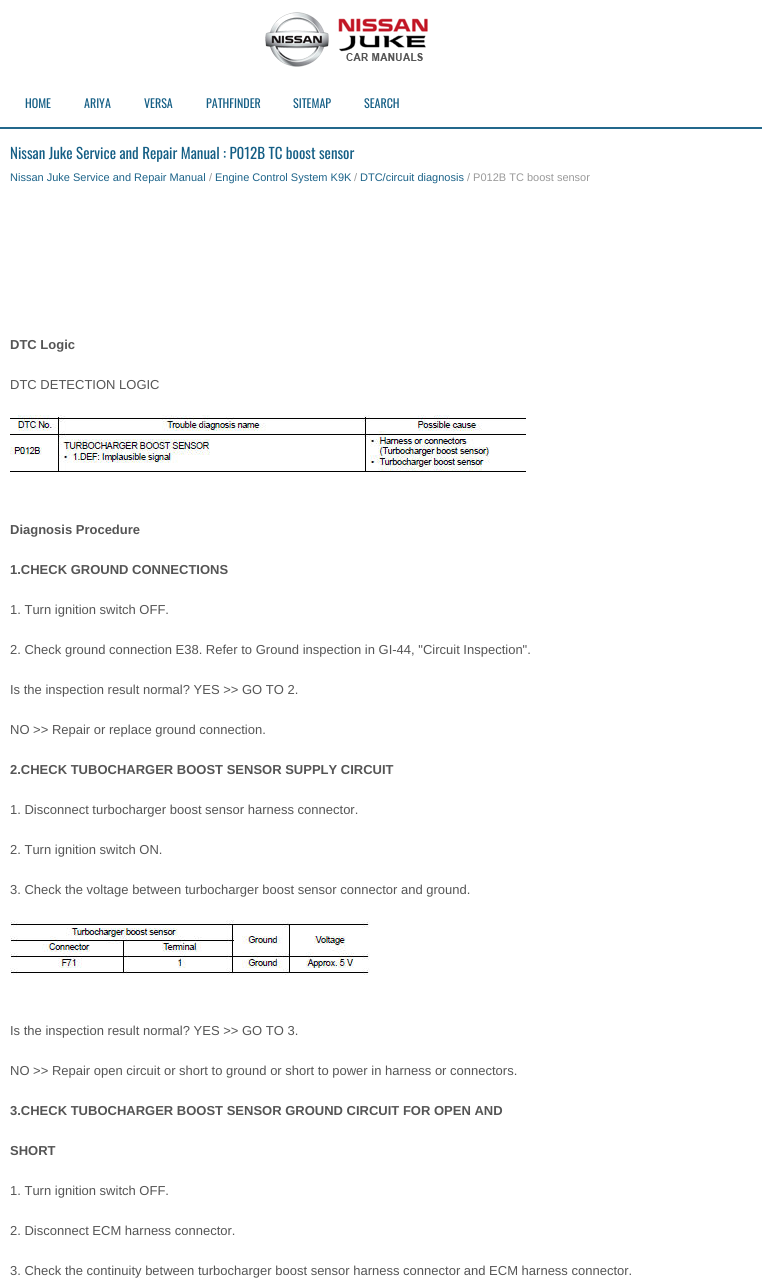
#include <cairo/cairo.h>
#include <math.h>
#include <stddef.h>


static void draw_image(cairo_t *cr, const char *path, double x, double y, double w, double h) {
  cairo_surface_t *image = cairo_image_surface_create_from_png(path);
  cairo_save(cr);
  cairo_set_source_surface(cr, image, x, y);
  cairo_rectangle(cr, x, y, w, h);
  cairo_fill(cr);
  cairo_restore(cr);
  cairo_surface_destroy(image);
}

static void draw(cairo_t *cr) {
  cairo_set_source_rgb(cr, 1, 1, 1);
  cairo_paint(cr);
  draw_image(cr, "images/1.png", 265, 12, 163, 55);
  cairo_set_source_rgb(cr, 35 / 255.0, 104 / 255.0, 140 / 255.0);
  cairo_rectangle(cr, 0, 127, 762, 2);
  cairo_fill(cr);
  draw_image(cr, "images/2.png", 10, 415, 516, 57);
  draw_image(cr, "images/3.png", 10, 920, 360, 55);
  cairo_select_font_face(cr, "Oswald", CAIRO_FONT_SLANT_NORMAL, CAIRO_FONT_WEIGHT_NORMAL);
  cairo_set_font_size(cr, 12);
  cairo_set_source_rgb(cr, 20 / 255.0, 94 / 255.0, 133 / 255.0);
  cairo_move_to(cr, 25, 108);
  cairo_show_text(cr, "HOME");
  cairo_move_to(cr, 84, 108);
  cairo_show_text(cr, "ARIYA");
  cairo_move_to(cr, 144, 108);
  cairo_show_text(cr, "VERSA");
  cairo_move_to(cr, 206, 108);
  cairo_show_text(cr, "PATHFINDER");
  cairo_move_to(cr, 293, 108);
  cairo_show_text(cr, "SITEMAP");
  cairo_move_to(cr, 364, 108);
  cairo_show_text(cr, "SEARCH");
  cairo_set_font_size(cr, 15);
  cairo_move_to(cr, 10, 159);
  cairo_show_text(cr, "Nissan Juke Service and Repair Manual : P012B TC boost sensor");
  cairo_select_font_face(cr, "Liberation Sans", CAIRO_FONT_SLANT_NORMAL, CAIRO_FONT_WEIGHT_NORMAL);
  cairo_set_font_size(cr, 11);
  cairo_set_source_rgb(cr, 28 / 255.0, 99 / 255.0, 137 / 255.0);
  cairo_move_to(cr, 10, 181);
  cairo_show_text(cr, "Nissan Juke Service and Repair Manual");
  cairo_set_source_rgb(cr, 153 / 255.0, 153 / 255.0, 153 / 255.0);
  cairo_move_to(cr, 209, 181);
  cairo_show_text(cr, "/");
  cairo_set_source_rgb(cr, 28 / 255.0, 99 / 255.0, 137 / 255.0);
  cairo_move_to(cr, 215, 181);
  cairo_show_text(cr, "Engine Control System K9K");
  cairo_set_source_rgb(cr, 153 / 255.0, 153 / 255.0, 153 / 255.0);
  cairo_move_to(cr, 354, 181);
  cairo_show_text(cr, "/");
  cairo_set_source_rgb(cr, 28 / 255.0, 99 / 255.0, 137 / 255.0);
  cairo_move_to(cr, 360, 181);
  cairo_show_text(cr, "DTC/circuit diagnosis");
  cairo_set_source_rgb(cr, 153 / 255.0, 153 / 255.0, 153 / 255.0);
  cairo_move_to(cr, 467, 181);
  cairo_show_text(cr, "/ P012B TC boost sensor");
  cairo_select_font_face(cr, "Liberation Sans", CAIRO_FONT_SLANT_NORMAL, CAIRO_FONT_WEIGHT_BOLD);
  cairo_set_font_size(cr, 13);
  cairo_set_source_rgb(cr, 85 / 255.0, 85 / 255.0, 85 / 255.0);
  cairo_move_to(cr, 10, 349);
  cairo_show_text(cr, "DTC Logic");
  cairo_select_font_face(cr, "Liberation Sans", CAIRO_FONT_SLANT_NORMAL, CAIRO_FONT_WEIGHT_NORMAL);
  cairo_move_to(cr, 10, 389);
  cairo_show_text(cr, "DTC DETECTION LOGIC");
  cairo_select_font_face(cr, "Liberation Sans", CAIRO_FONT_SLANT_NORMAL, CAIRO_FONT_WEIGHT_BOLD);
  cairo_move_to(cr, 10, 534);
  cairo_show_text(cr, "Diagnosis Procedure");
  cairo_move_to(cr, 10, 574);
  cairo_show_text(cr, "1.CHECK GROUND CONNECTIONS");
  cairo_select_font_face(cr, "Liberation Sans", CAIRO_FONT_SLANT_NORMAL, CAIRO_FONT_WEIGHT_NORMAL);
  cairo_move_to(cr, 10, 614);
  cairo_show_text(cr, "1. Turn ignition switch OFF.");
  cairo_move_to(cr, 10, 654);
  cairo_show_text(cr, "2. Check ground connection E38. Refer to Ground inspection in GI-44, \"Circuit Inspection\".");
  cairo_move_to(cr, 10, 694);
  cairo_show_text(cr, "Is the inspection result normal? YES >> GO TO 2.");
  cairo_move_to(cr, 10, 734);
  cairo_show_text(cr, "NO >> Repair or replace ground connection.");
  cairo_select_font_face(cr, "Liberation Sans", CAIRO_FONT_SLANT_NORMAL, CAIRO_FONT_WEIGHT_BOLD);
  cairo_move_to(cr, 10, 774);
  cairo_show_text(cr, "2.CHECK TUBOCHARGER BOOST SENSOR SUPPLY CIRCUIT");
  cairo_select_font_face(cr, "Liberation Sans", CAIRO_FONT_SLANT_NORMAL, CAIRO_FONT_WEIGHT_NORMAL);
  cairo_move_to(cr, 10, 814);
  cairo_show_text(cr, "1. Disconnect turbocharger boost sensor harness connector.");
  cairo_move_to(cr, 10, 854);
  cairo_show_text(cr, "2. Turn ignition switch ON.");
  cairo_move_to(cr, 10, 894);
  cairo_show_text(cr, "3. Check the voltage between turbocharger boost sensor connector and ground.");
  cairo_move_to(cr, 10, 1035);
  cairo_show_text(cr, "Is the inspection result normal? YES >> GO TO 3.");
  cairo_move_to(cr, 10, 1075);
  cairo_show_text(cr, "NO >> Repair open circuit or short to ground or short to power in harness or connectors.");
  cairo_select_font_face(cr, "Liberation Sans", CAIRO_FONT_SLANT_NORMAL, CAIRO_FONT_WEIGHT_BOLD);
  cairo_move_to(cr, 10, 1115);
  cairo_show_text(cr, "3.CHECK TUBOCHARGER BOOST SENSOR GROUND CIRCUIT FOR OPEN AND");
  cairo_move_to(cr, 10, 1155);
  cairo_show_text(cr, "SHORT");
  cairo_select_font_face(cr, "Liberation Sans", CAIRO_FONT_SLANT_NORMAL, CAIRO_FONT_WEIGHT_NORMAL);
  cairo_move_to(cr, 10, 1195);
  cairo_show_text(cr, "1. Turn ignition switch OFF.");
  cairo_move_to(cr, 10, 1235);
  cairo_show_text(cr, "2. Disconnect ECM harness connector.");
  cairo_move_to(cr, 10, 1275);
  cairo_show_text(cr, "3. Check the continuity between turbocharger boost sensor harness connector and ECM harness connector.");
}

int main(void) {
  cairo_surface_t *surface = cairo_image_surface_create(CAIRO_FORMAT_RGB24, 762, 1288);
  cairo_t *cr = cairo_create(surface);
  cairo_font_options_t *options = cairo_font_options_create();
  cairo_font_options_set_hint_metrics(options, CAIRO_HINT_METRICS_OFF);
  cairo_font_options_set_hint_style(options, CAIRO_HINT_STYLE_NONE);
  cairo_set_font_options(cr, options);
  cairo_set_miter_limit(cr, 4);
  draw(cr);
  cairo_surface_write_to_png(surface, "out.png");
  cairo_font_options_destroy(options);
  cairo_destroy(cr);
  cairo_surface_destroy(surface);
  return 0;
}
